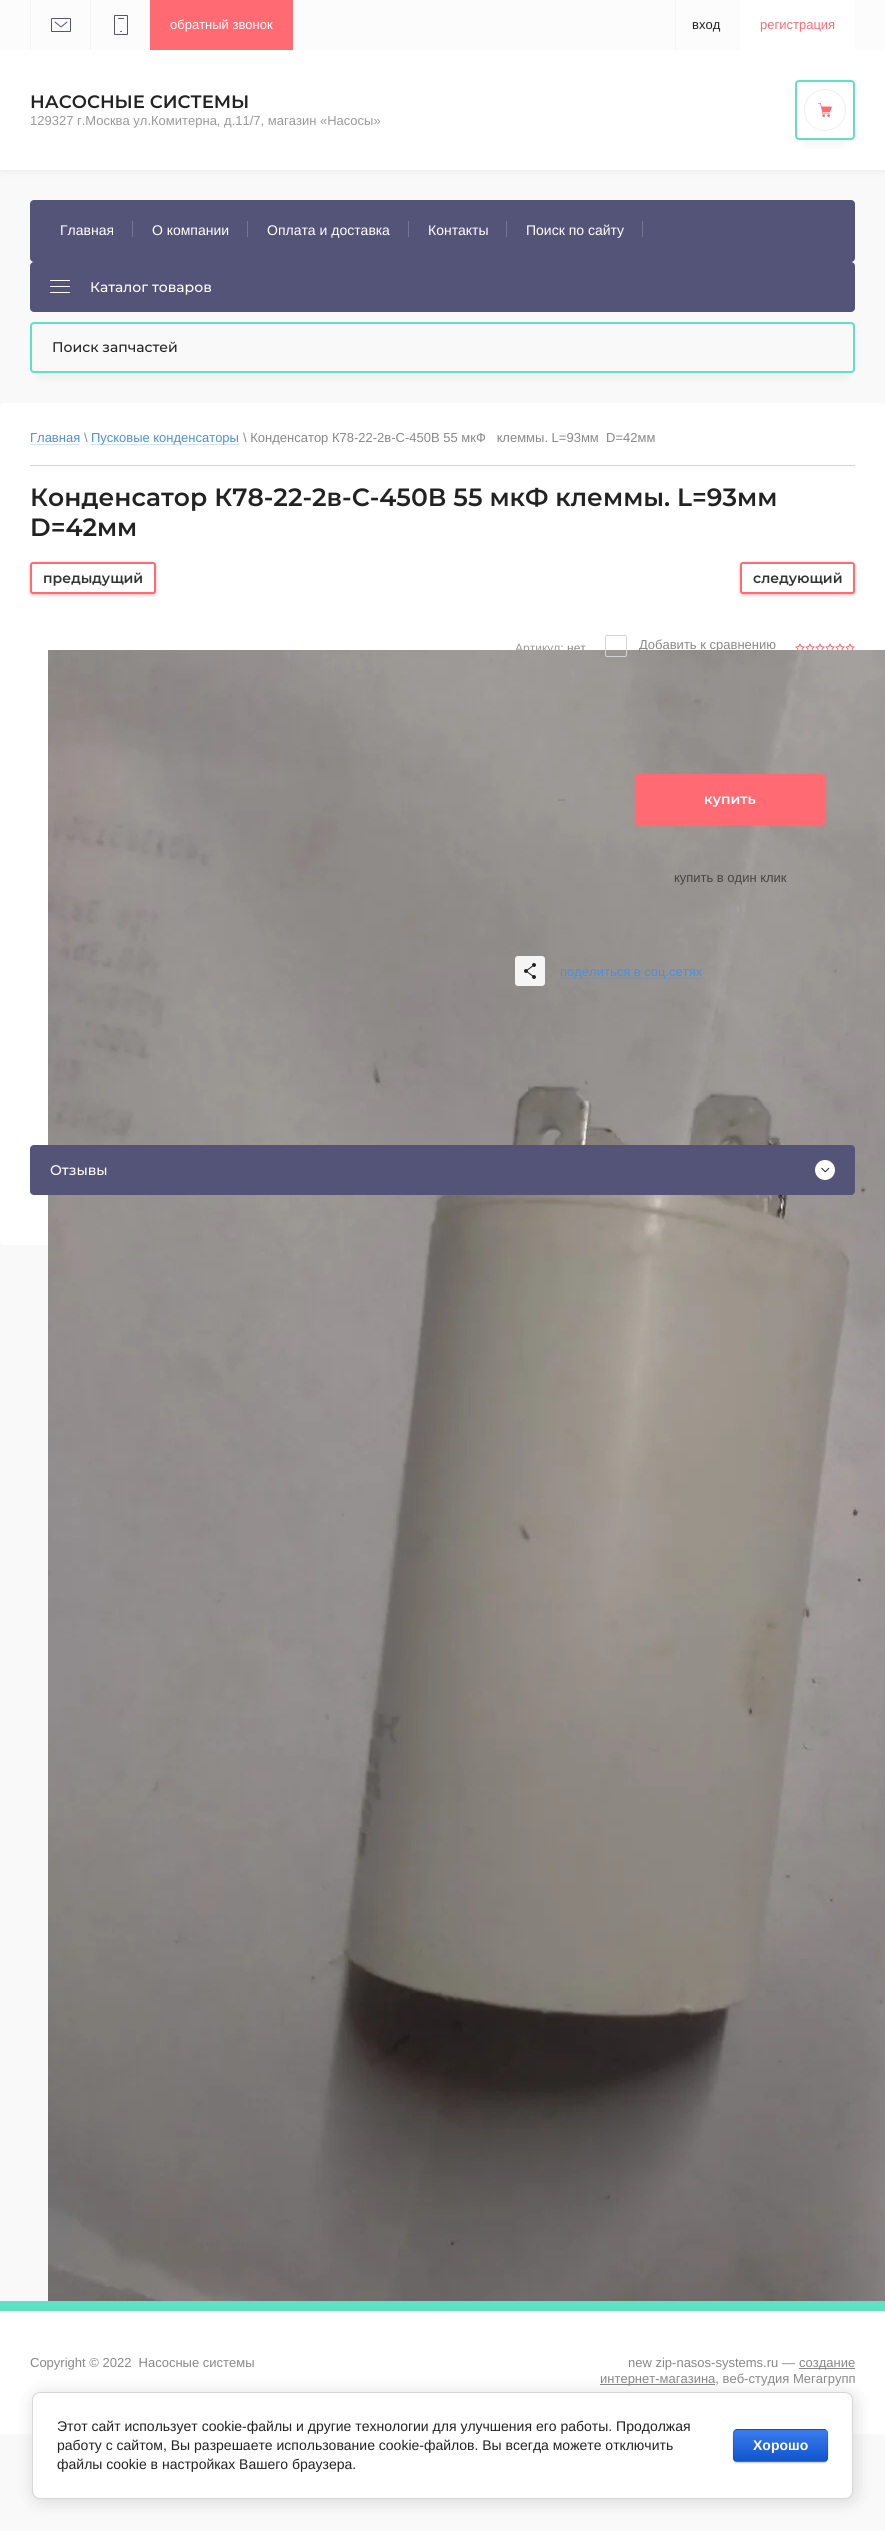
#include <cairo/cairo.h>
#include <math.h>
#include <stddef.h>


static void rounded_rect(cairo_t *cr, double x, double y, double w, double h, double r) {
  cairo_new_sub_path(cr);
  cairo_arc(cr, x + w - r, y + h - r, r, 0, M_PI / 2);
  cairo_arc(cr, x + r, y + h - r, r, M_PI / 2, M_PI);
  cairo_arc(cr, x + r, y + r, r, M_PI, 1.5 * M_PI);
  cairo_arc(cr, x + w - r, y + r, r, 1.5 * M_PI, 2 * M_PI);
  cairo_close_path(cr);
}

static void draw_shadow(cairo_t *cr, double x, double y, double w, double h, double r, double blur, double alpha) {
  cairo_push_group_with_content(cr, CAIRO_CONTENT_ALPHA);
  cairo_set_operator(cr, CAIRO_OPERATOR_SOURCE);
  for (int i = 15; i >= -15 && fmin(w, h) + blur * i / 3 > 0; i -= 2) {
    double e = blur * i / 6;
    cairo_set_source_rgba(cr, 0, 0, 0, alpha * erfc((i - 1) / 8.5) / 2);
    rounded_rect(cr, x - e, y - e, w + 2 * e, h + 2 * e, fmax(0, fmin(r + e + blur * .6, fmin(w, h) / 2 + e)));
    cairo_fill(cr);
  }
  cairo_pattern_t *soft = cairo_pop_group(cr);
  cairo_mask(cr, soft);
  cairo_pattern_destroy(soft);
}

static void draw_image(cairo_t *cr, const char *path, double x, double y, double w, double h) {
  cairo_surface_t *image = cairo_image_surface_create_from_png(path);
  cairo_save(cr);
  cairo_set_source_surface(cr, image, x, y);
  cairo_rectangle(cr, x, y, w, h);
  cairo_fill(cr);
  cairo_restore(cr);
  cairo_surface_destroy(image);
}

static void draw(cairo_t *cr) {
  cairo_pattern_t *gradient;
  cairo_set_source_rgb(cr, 249 / 255.0, 249 / 255.0, 249 / 255.0);
  cairo_paint(cr);
  cairo_set_source_rgb(cr, 0, 0, 0);
  draw_shadow(cr, 0, 52, 885, 120, 0, 4, 0.05);
  cairo_set_source_rgb(cr, 252 / 255.0, 252 / 255.0, 252 / 255.0);
  cairo_rectangle(cr, 0, 0, 885, 50);
  cairo_fill(cr);
  draw_image(cr, "images/1.png", 51, 18, 20, 14);
  cairo_set_source_rgb(cr, 245 / 255.0, 245 / 255.0, 245 / 255.0);
  cairo_rectangle(cr, 30, 0, 1, 50);
  cairo_fill(cr);
  draw_image(cr, "images/2.png", 114, 15, 14, 20);
  cairo_rectangle(cr, 90, 0, 1, 50);
  cairo_fill(cr);
  cairo_set_source_rgb(cr, 1, 106 / 255.0, 115 / 255.0);
  cairo_rectangle(cr, 150, 0, 143, 50);
  cairo_fill(cr);
  cairo_set_source_rgb(cr, 245 / 255.0, 245 / 255.0, 245 / 255.0);
  cairo_rectangle(cr, 675, 0, 1, 50);
  cairo_fill(cr);
  cairo_set_source_rgb(cr, 1, 1, 1);
  cairo_rectangle(cr, 740, 0, 115, 50);
  cairo_fill(cr);
  cairo_rectangle(cr, 0, 50, 885, 120);
  cairo_fill(cr);
  cairo_save(cr);
  cairo_rectangle(cr, 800, 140, 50, 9);
  cairo_clip(cr);
  cairo_set_source_rgb(cr, 138 / 255.0, 138 / 255.0, 138 / 255.0);
  draw_shadow(cr, 805, 102, 40, 40, 0, 6, 0.16);
  cairo_restore(cr);
  rounded_rect(cr, 796, 81, 58, 58, 3);
  cairo_set_source_rgb(cr, 95 / 255.0, 225 / 255.0, 195 / 255.0);
  cairo_stroke(cr);
  draw_image(cr, "images/3.png", 818, 103, 14, 14);
  cairo_arc(cr, 825, 110, 20.5, 0, 2 * M_PI);
  cairo_set_source_rgb(cr, 239 / 255.0, 239 / 255.0, 239 / 255.0);
  cairo_set_line_width(cr, 1);
  cairo_stroke(cr);
  cairo_set_source_rgb(cr, 84 / 255.0, 84 / 255.0, 121 / 255.0);
  rounded_rect(cr, 30, 200, 825, 62, 4);
  cairo_fill(cr);
  cairo_set_source_rgb(cr, 118 / 255.0, 118 / 255.0, 148 / 255.0);
  cairo_rectangle(cr, 132, 221, 1, 16);
  cairo_fill(cr);
  cairo_rectangle(cr, 247, 221, 1, 16);
  cairo_fill(cr);
  cairo_rectangle(cr, 408, 221, 1, 16);
  cairo_fill(cr);
  cairo_rectangle(cr, 506, 221, 1, 16);
  cairo_fill(cr);
  cairo_rectangle(cr, 642, 221, 1, 16);
  cairo_fill(cr);
  cairo_set_source_rgb(cr, 84 / 255.0, 84 / 255.0, 121 / 255.0);
  rounded_rect(cr, 30, 262, 825, 50, 4);
  cairo_fill(cr);
  draw_image(cr, "images/4.png", 50, 280, 20, 13);
  cairo_save(cr);
  cairo_rectangle(cr, 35, 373, 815, 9);
  cairo_clip(cr);
  cairo_set_source_rgb(cr, 138 / 255.0, 138 / 255.0, 138 / 255.0);
  draw_shadow(cr, 40, 344, 805, 31, 0, 6, 0.16);
  cairo_restore(cr);
  rounded_rect(cr, 31, 323, 823, 49, 3);
  cairo_set_source_rgb(cr, 95 / 255.0, 225 / 255.0, 195 / 255.0);
  cairo_set_line_width(cr, 2);
  cairo_stroke(cr);
  cairo_set_source_rgb(cr, 1, 1, 1);
  rounded_rect(cr, 0, 403, 885, 842, 4);
  cairo_fill(cr);
  cairo_set_source_rgb(cr, 211 / 255.0, 211 / 255.0, 211 / 255.0);
  cairo_rectangle(cr, 30, 465, 825, 1);
  cairo_fill(cr);
  cairo_set_source_rgb(cr, 210 / 255.0, 227 / 255.0, 248 / 255.0);
  cairo_rectangle(cr, 30, 444, 50, 1);
  cairo_fill(cr);
  cairo_set_source_rgb(cr, 1, 106 / 255.0, 115 / 255.0);
  draw_shadow(cr, 30, 563, 126, 32, 3, 1.5, 0.5);
  cairo_set_source_rgb(cr, 1, 1, 1);
  rounded_rect(cr, 31, 563, 124, 30, 2);
  cairo_fill_preserve(cr);
  cairo_set_source_rgb(cr, 1, 106 / 255.0, 115 / 255.0);
  cairo_stroke(cr);
  cairo_set_source_rgb(cr, 1, 106 / 255.0, 115 / 255.0);
  draw_shadow(cr, 740, 563, 115, 32, 3, 1.5, 0.5);
  cairo_set_source_rgb(cr, 1, 1, 1);
  rounded_rect(cr, 741, 563, 113, 30, 2);
  cairo_fill_preserve(cr);
  cairo_set_source_rgb(cr, 1, 106 / 255.0, 115 / 255.0);
  cairo_stroke(cr);
  draw_image(cr, "images/5.png", 795, 643, 60, 7);
  cairo_set_source_rgb(cr, 1, 1, 1);
  cairo_rectangle(cr, 0, 2311, 885, 123);
  cairo_fill(cr);
  cairo_set_source_rgb(cr, 95 / 255.0, 225 / 255.0, 195 / 255.0);
  cairo_rectangle(cr, 0, 2301, 885, 10);
  cairo_fill(cr);
  cairo_set_source_rgb(cr, 136 / 255.0, 136 / 255.0, 136 / 255.0);
  cairo_rectangle(cr, 799, 2368, 56, 1);
  cairo_fill(cr);
  cairo_rectangle(cr, 600, 2384, 115, 1);
  cairo_fill(cr);
  cairo_set_source_rgb(cr, 0, 0, 0);
  draw_shadow(cr, 34, 2394, 821, 107, 8, 9, 0.14);
  cairo_set_source_rgb(cr, 1, 1, 1);
  rounded_rect(cr, 32.5, 2392.5, 820, 106, 7.5);
  cairo_fill_preserve(cr);
  cairo_set_source_rgb(cr, 214 / 255.0, 214 / 255.0, 214 / 255.0);
  cairo_set_line_width(cr, 1);
  cairo_stroke(cr);
  cairo_set_source_rgb(cr, 0, 0, 0);
  draw_shadow(cr, 733, 2430, 95, 33, 4, 0.5, 0.2);
  cairo_save(cr);
  rounded_rect(cr, 733, 2429, 95, 33, 4);
  cairo_clip(cr);
  gradient = cairo_pattern_create_linear(781, 2399, 781, 2430);
  cairo_pattern_add_color_stop_rgba(gradient, 0, 59 / 255.0, 124 / 255.0, 239 / 255.0, 1);
  cairo_pattern_add_color_stop_rgba(gradient, 1, 17 / 255.0, 85 / 255.0, 204 / 255.0, 1);
  cairo_set_source(cr, gradient);
  cairo_pattern_destroy(gradient);
  cairo_rectangle(cr, 733, 2429, 95, 1);
  cairo_fill(cr);
  gradient = cairo_pattern_create_linear(781, 2430, 781, 2461);
  cairo_pattern_add_color_stop_rgba(gradient, 0, 59 / 255.0, 124 / 255.0, 239 / 255.0, 1);
  cairo_pattern_add_color_stop_rgba(gradient, 1, 17 / 255.0, 85 / 255.0, 204 / 255.0, 1);
  cairo_set_source(cr, gradient);
  cairo_pattern_destroy(gradient);
  cairo_rectangle(cr, 733, 2430, 95, 31);
  cairo_fill(cr);
  gradient = cairo_pattern_create_linear(781, 2461, 781, 2492);
  cairo_pattern_add_color_stop_rgba(gradient, 0, 59 / 255.0, 124 / 255.0, 239 / 255.0, 1);
  cairo_pattern_add_color_stop_rgba(gradient, 1, 17 / 255.0, 85 / 255.0, 204 / 255.0, 1);
  cairo_set_source(cr, gradient);
  cairo_pattern_destroy(gradient);
  cairo_rectangle(cr, 733, 2461, 95, 1);
  cairo_fill(cr);
  cairo_restore(cr);
  rounded_rect(cr, 733.5, 2429.5, 94, 32, 3.5);
  cairo_set_source_rgba(cr, 0, 0, 0, 0.1);
  cairo_stroke(cr);
  cairo_select_font_face(cr, "Liberation Sans", CAIRO_FONT_SLANT_NORMAL, CAIRO_FONT_WEIGHT_NORMAL);
  cairo_set_font_size(cr, 13);
  cairo_set_source_rgb(cr, 1, 1, 1);
  cairo_move_to(cr, 170, 29);
  cairo_show_text(cr, "обратный звонок");
  cairo_set_source_rgb(cr, 34 / 255.0, 34 / 255.0, 34 / 255.0);
  cairo_move_to(cr, 692, 29);
  cairo_show_text(cr, "вход");
  cairo_set_source_rgb(cr, 1, 106 / 255.0, 115 / 255.0);
  cairo_move_to(cr, 760, 29);
  cairo_show_text(cr, "регистрация");
  cairo_select_font_face(cr, "Montserrat SemiBold", CAIRO_FONT_SLANT_NORMAL, CAIRO_FONT_WEIGHT_NORMAL);
  cairo_set_font_size(cr, 18);
  cairo_set_source_rgb(cr, 34 / 255.0, 34 / 255.0, 34 / 255.0);
  cairo_move_to(cr, 30, 108);
  cairo_show_text(cr, "НАСОСНЫЕ СИСТЕМЫ");
  cairo_select_font_face(cr, "Liberation Sans", CAIRO_FONT_SLANT_NORMAL, CAIRO_FONT_WEIGHT_NORMAL);
  cairo_set_font_size(cr, 13);
  cairo_set_source_rgb(cr, 153 / 255.0, 153 / 255.0, 153 / 255.0);
  cairo_move_to(cr, 30, 125);
  cairo_show_text(cr, "129327 г.Москва ул.Комитерна, д.11/7, магазин «Насосы»");
  cairo_set_font_size(cr, 14);
  cairo_set_source_rgb(cr, 1, 1, 1);
  cairo_move_to(cr, 60, 235);
  cairo_show_text(cr, "Главная");
  cairo_move_to(cr, 152, 235);
  cairo_show_text(cr, "О компании");
  cairo_move_to(cr, 267, 235);
  cairo_show_text(cr, "Оплата и доставка");
  cairo_move_to(cr, 428, 235);
  cairo_show_text(cr, "Контакты");
  cairo_move_to(cr, 526, 235);
  cairo_show_text(cr, "Поиск по сайту");
  cairo_select_font_face(cr, "Montserrat Medium", CAIRO_FONT_SLANT_NORMAL, CAIRO_FONT_WEIGHT_NORMAL);
  cairo_move_to(cr, 90, 292);
  cairo_show_text(cr, "Каталог товаров");
  cairo_set_source_rgb(cr, 34 / 255.0, 34 / 255.0, 34 / 255.0);
  cairo_move_to(cr, 52, 352);
  cairo_show_text(cr, "Поиск запчастей");
  cairo_select_font_face(cr, "Liberation Sans", CAIRO_FONT_SLANT_NORMAL, CAIRO_FONT_WEIGHT_NORMAL);
  cairo_set_font_size(cr, 13);
  cairo_set_source_rgb(cr, 74 / 255.0, 144 / 255.0, 226 / 255.0);
  cairo_move_to(cr, 30, 442);
  cairo_show_text(cr, "Главная");
  cairo_set_source_rgb(cr, 136 / 255.0, 136 / 255.0, 136 / 255.0);
  cairo_move_to(cr, 84, 442);
  cairo_show_text(cr, "\\");
  cairo_set_source_rgb(cr, 74 / 255.0, 144 / 255.0, 226 / 255.0);
  cairo_move_to(cr, 91, 442);
  cairo_show_text(cr, "Пусковые конденсаторы");
  cairo_set_source_rgba(cr, 74 / 255.0, 144 / 255.0, 226 / 255.0, 0.25);
  cairo_rectangle(cr, 91, 444, 148, 1);
  cairo_fill(cr);
  cairo_set_source_rgb(cr, 136 / 255.0, 136 / 255.0, 136 / 255.0);
  cairo_move_to(cr, 243, 442);
  cairo_show_text(cr, "\\ Конденсатор К78-22-2в-С-450В 55 мкФ   клеммы. L=93мм  D=42мм");
  cairo_select_font_face(cr, "Montserrat SemiBold", CAIRO_FONT_SLANT_NORMAL, CAIRO_FONT_WEIGHT_NORMAL);
  cairo_set_font_size(cr, 25);
  cairo_set_source_rgb(cr, 34 / 255.0, 34 / 255.0, 34 / 255.0);
  cairo_move_to(cr, 30, 506);
  cairo_show_text(cr, "Конденсатор К78-22-2в-С-450В 55 мкФ клеммы. L=93мм");
  cairo_move_to(cr, 30, 536);
  cairo_show_text(cr, "D=42мм");
  cairo_select_font_face(cr, "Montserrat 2 SemiBold", CAIRO_FONT_SLANT_NORMAL, CAIRO_FONT_WEIGHT_NORMAL);
  cairo_set_font_size(cr, 14);
  cairo_set_source_rgb(cr, 51 / 255.0, 51 / 255.0, 51 / 255.0);
  cairo_move_to(cr, 43, 583);
  cairo_show_text(cr, "предыдущий");
  cairo_move_to(cr, 753, 583);
  cairo_show_text(cr, "следующий");
  cairo_select_font_face(cr, "Liberation Sans", CAIRO_FONT_SLANT_NORMAL, CAIRO_FONT_WEIGHT_NORMAL);
  cairo_set_font_size(cr, 12);
  cairo_set_source_rgb(cr, 153 / 255.0, 153 / 255.0, 153 / 255.0);
  cairo_move_to(cr, 515, 652);
  cairo_show_text(cr, "Артикул:");
  cairo_set_source_rgb(cr, 136 / 255.0, 136 / 255.0, 136 / 255.0);
  cairo_move_to(cr, 567, 652);
  cairo_show_text(cr, "нет");
  draw_image(cr, "images/7.png", 48, 650, 837, 1651);
  cairo_set_source_rgb(cr, 1, 106 / 255.0, 115 / 255.0);
  draw_shadow(cr, 635, 775, 190, 51, 3, 1.5, 0.5);
  cairo_set_source_rgb(cr, 1, 106 / 255.0, 115 / 255.0);
  rounded_rect(cr, 635, 774, 190, 51, 3);
  cairo_fill(cr);
  cairo_select_font_face(cr, "Montserrat SemiBold", CAIRO_FONT_SLANT_NORMAL, CAIRO_FONT_WEIGHT_NORMAL);
  cairo_set_font_size(cr, 14);
  cairo_set_source_rgb(cr, 1, 1, 1);
  cairo_move_to(cr, 704, 804);
  cairo_show_text(cr, "купить");
  cairo_select_font_face(cr, "Liberation Sans", CAIRO_FONT_SLANT_NORMAL, CAIRO_FONT_WEIGHT_NORMAL);
  cairo_set_font_size(cr, 13);
  cairo_set_source_rgb(cr, 74 / 255.0, 144 / 255.0, 226 / 255.0);
  cairo_move_to(cr, 560, 976);
  cairo_show_text(cr, "поделиться в соц.сетях");
  cairo_set_source_rgba(cr, 74 / 255.0, 144 / 255.0, 226 / 255.0, 0.25);
  cairo_rectangle(cr, 560, 978, 142, 1);
  cairo_fill(cr);
  cairo_set_source_rgb(cr, 245 / 255.0, 245 / 255.0, 245 / 255.0);
  rounded_rect(cr, 515, 956, 30, 30, 3);
  cairo_fill(cr);
  draw_image(cr, "images/6.png", 524, 963, 12, 16);
  cairo_set_source_rgb(cr, 69 / 255.0, 69 / 255.0, 69 / 255.0);
  cairo_move_to(cr, 674, 882);
  cairo_show_text(cr, "купить в один клик");
  cairo_set_source_rgb(cr, 146 / 255.0, 142 / 255.0, 138 / 255.0);
  cairo_rectangle(cr, 558, 799, 8, 2);
  cairo_fill(cr);
  rounded_rect(cr, 605.5, 635.5, 21, 21, 1.5);
  cairo_set_source_rgb(cr, 211 / 255.0, 211 / 255.0, 211 / 255.0);
  cairo_stroke(cr);
  cairo_set_source_rgb(cr, 136 / 255.0, 136 / 255.0, 136 / 255.0);
  cairo_move_to(cr, 639, 649);
  cairo_show_text(cr, "Добавить к сравнению");
  cairo_set_source_rgb(cr, 84 / 255.0, 84 / 255.0, 121 / 255.0);
  rounded_rect(cr, 30, 1145, 825, 50, 4);
  cairo_fill(cr);
  cairo_select_font_face(cr, "Montserrat Medium", CAIRO_FONT_SLANT_NORMAL, CAIRO_FONT_WEIGHT_NORMAL);
  cairo_set_font_size(cr, 14);
  cairo_set_source_rgb(cr, 1, 1, 1);
  cairo_move_to(cr, 50, 1175);
  cairo_show_text(cr, "Отзывы");
  cairo_new_path(cr);
  cairo_arc(cr, 825, 1170, 10, 0, 2 * M_PI);
  cairo_fill(cr);
  draw_image(cr, "images/8.png", 821, 1167, 9, 6);
  cairo_select_font_face(cr, "Liberation Sans", CAIRO_FONT_SLANT_NORMAL, CAIRO_FONT_WEIGHT_NORMAL);
  cairo_set_font_size(cr, 13);
  cairo_set_source_rgb(cr, 136 / 255.0, 136 / 255.0, 136 / 255.0);
  cairo_move_to(cr, 30, 2367);
  cairo_show_text(cr, "Copyright © 2022  Насосные системы");
  cairo_move_to(cr, 628, 2367);
  cairo_show_text(cr, "new zip-nasos-systems.ru —");
  cairo_move_to(cr, 799, 2367);
  cairo_show_text(cr, "создание");
  cairo_move_to(cr, 600, 2383);
  cairo_show_text(cr, "интернет-магазина, веб-студия Мегагрупп");
  cairo_set_font_size(cr, 14);
  cairo_set_source_rgb(cr, 34 / 255.0, 34 / 255.0, 34 / 255.0);
  cairo_move_to(cr, 57, 2431);
  cairo_show_text(cr, "Этот сайт использует cookie-файлы и другие технологии для улучшения его работы. Продолжая");
  cairo_move_to(cr, 57, 2450);
  cairo_show_text(cr, "работу с сайтом, Вы разрешаете использование cookie-файлов. Вы всегда можете отключить");
  cairo_move_to(cr, 57, 2469);
  cairo_show_text(cr, "файлы cookie в настройках Вашего браузера.");
  cairo_select_font_face(cr, "Liberation Sans", CAIRO_FONT_SLANT_NORMAL, CAIRO_FONT_WEIGHT_BOLD);
  cairo_set_source_rgb(cr, 1, 1, 1);
  cairo_move_to(cr, 753, 2450);
  cairo_show_text(cr, "Хорошо");
}

int main(void) {
  cairo_surface_t *surface = cairo_image_surface_create(CAIRO_FORMAT_RGB24, 885, 2531);
  cairo_t *cr = cairo_create(surface);
  cairo_font_options_t *options = cairo_font_options_create();
  cairo_font_options_set_hint_metrics(options, CAIRO_HINT_METRICS_OFF);
  cairo_font_options_set_hint_style(options, CAIRO_HINT_STYLE_NONE);
  cairo_set_font_options(cr, options);
  cairo_set_miter_limit(cr, 4);
  draw(cr);
  cairo_surface_write_to_png(surface, "out.png");
  cairo_font_options_destroy(options);
  cairo_destroy(cr);
  cairo_surface_destroy(surface);
  return 0;
}
